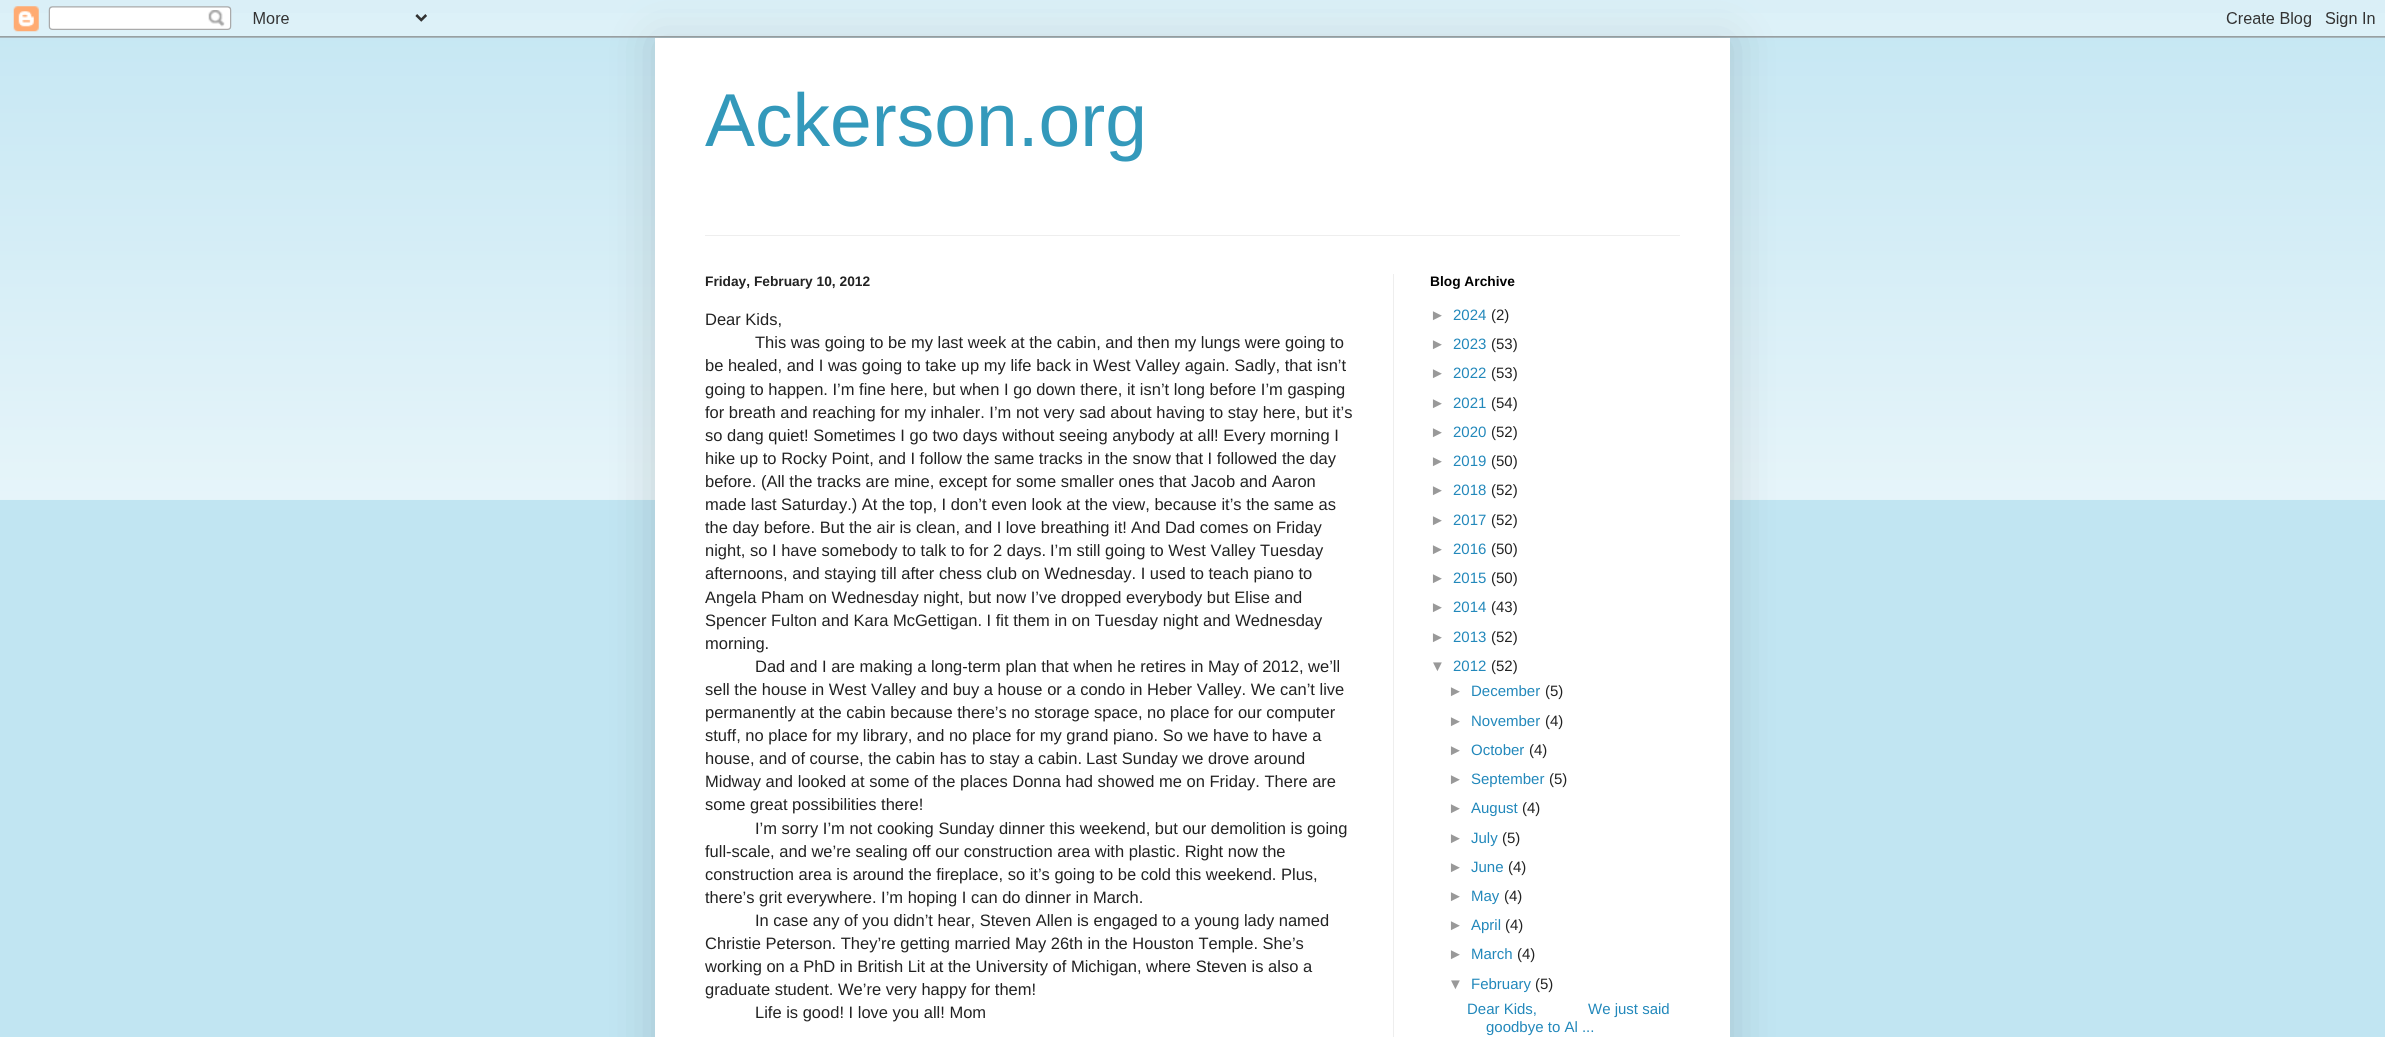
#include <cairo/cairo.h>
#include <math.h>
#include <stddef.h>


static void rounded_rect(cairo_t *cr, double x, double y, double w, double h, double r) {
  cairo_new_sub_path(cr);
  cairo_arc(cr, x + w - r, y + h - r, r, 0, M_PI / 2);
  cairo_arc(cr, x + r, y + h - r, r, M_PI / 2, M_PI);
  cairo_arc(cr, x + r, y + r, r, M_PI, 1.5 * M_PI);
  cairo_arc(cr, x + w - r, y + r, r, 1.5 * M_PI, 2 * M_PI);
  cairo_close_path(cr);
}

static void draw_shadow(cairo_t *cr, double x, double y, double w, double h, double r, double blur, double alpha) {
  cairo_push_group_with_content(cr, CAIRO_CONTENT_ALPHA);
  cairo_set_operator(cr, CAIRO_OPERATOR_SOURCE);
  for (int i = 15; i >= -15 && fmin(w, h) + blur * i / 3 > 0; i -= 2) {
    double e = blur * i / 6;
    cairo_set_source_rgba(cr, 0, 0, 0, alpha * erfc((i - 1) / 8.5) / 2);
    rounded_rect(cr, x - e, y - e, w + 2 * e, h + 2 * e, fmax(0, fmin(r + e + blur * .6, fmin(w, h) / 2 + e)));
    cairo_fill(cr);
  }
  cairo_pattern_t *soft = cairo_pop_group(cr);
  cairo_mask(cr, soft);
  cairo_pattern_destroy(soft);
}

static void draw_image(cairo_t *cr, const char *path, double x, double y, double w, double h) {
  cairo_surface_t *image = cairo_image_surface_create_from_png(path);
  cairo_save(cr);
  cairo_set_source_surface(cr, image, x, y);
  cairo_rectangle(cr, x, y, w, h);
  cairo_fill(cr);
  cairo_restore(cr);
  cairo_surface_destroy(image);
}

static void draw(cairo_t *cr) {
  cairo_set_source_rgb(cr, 193 / 255.0, 229 / 255.0, 242 / 255.0);
  cairo_paint(cr);
  draw_image(cr, "images/2.png", 0, 13, 2385, 487);
  cairo_set_source_rgb(cr, 0, 0, 0);
  draw_shadow(cr, 655, 38, 1075, 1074, 0, 25, 0.15);
  draw_image(cr, "images/1.png", 0, 0, 2385, 38);
  cairo_set_source_rgb(cr, 1, 1, 1);
  cairo_rectangle(cr, 655, 38, 1075, 999);
  cairo_fill(cr);
  cairo_set_source_rgb(cr, 238 / 255.0, 238 / 255.0, 238 / 255.0);
  cairo_rectangle(cr, 705, 235, 975, 1);
  cairo_fill(cr);
  cairo_rectangle(cr, 1393, 274, 1, 763);
  cairo_fill(cr);
  cairo_select_font_face(cr, "Liberation Sans", CAIRO_FONT_SLANT_NORMAL, CAIRO_FONT_WEIGHT_NORMAL);
  cairo_set_font_size(cr, 75);
  cairo_set_source_rgb(cr, 51 / 255.0, 153 / 255.0, 187 / 255.0);
  cairo_move_to(cr, 705, 146);
  cairo_show_text(cr, "Ackerson.org");
  cairo_select_font_face(cr, "Liberation Sans", CAIRO_FONT_SLANT_NORMAL, CAIRO_FONT_WEIGHT_BOLD);
  cairo_set_font_size(cr, 13.75);
  cairo_set_source_rgb(cr, 34 / 255.0, 34 / 255.0, 34 / 255.0);
  cairo_move_to(cr, 705, 286);
  cairo_show_text(cr, "Friday, February 10, 2012");
  cairo_select_font_face(cr, "Liberation Sans", CAIRO_FONT_SLANT_NORMAL, CAIRO_FONT_WEIGHT_NORMAL);
  cairo_set_font_size(cr, 16.5);
  cairo_move_to(cr, 705, 325);
  cairo_show_text(cr, "Dear Kids,");
  cairo_move_to(cr, 755, 348);
  cairo_show_text(cr, "This was going to be my last week at the cabin, and then my lungs were going to");
  cairo_move_to(cr, 705, 371);
  cairo_show_text(cr, "be healed, and I was going to take up my life back in West Valley again. Sadly, that isn’t");
  cairo_move_to(cr, 705, 395);
  cairo_show_text(cr, "going to happen. I’m fine here, but when I go down there, it isn’t long before I’m gasping");
  cairo_move_to(cr, 705, 418);
  cairo_show_text(cr, "for breath and reaching for my inhaler. I’m not very sad about having to stay here, but it’s");
  cairo_move_to(cr, 705, 441);
  cairo_show_text(cr, "so dang quiet! Sometimes I go two days without seeing anybody at all! Every morning I");
  cairo_move_to(cr, 705, 464);
  cairo_show_text(cr, "hike up to Rocky Point, and I follow the same tracks in the snow that I followed the day");
  cairo_move_to(cr, 705, 487);
  cairo_show_text(cr, "before. (All the tracks are mine, except for some smaller ones that Jacob and Aaron");
  cairo_move_to(cr, 705, 510);
  cairo_show_text(cr, "made last Saturday.) At the top, I don’t even look at the view, because it’s the same as");
  cairo_move_to(cr, 705, 533);
  cairo_show_text(cr, "the day before. But the air is clean, and I love breathing it!");
  cairo_move_to(cr, 1131, 533);
  cairo_show_text(cr, "And Dad comes on Friday");
  cairo_move_to(cr, 705, 556);
  cairo_show_text(cr, "night, so I have somebody to talk to for 2 days.");
  cairo_move_to(cr, 1050, 556);
  cairo_show_text(cr, "I’m still going to West Valley Tuesday");
  cairo_move_to(cr, 705, 579);
  cairo_show_text(cr, "afternoons, and staying till after chess club on Wednesday. I used to teach piano to");
  cairo_move_to(cr, 705, 603);
  cairo_show_text(cr, "Angela Pham on Wednesday night, but now I’ve dropped everybody but Elise and");
  cairo_move_to(cr, 705, 626);
  cairo_show_text(cr, "Spencer Fulton and Kara McGettigan. I fit them in on Tuesday night and Wednesday");
  cairo_move_to(cr, 705, 649);
  cairo_show_text(cr, "morning.");
  cairo_move_to(cr, 755, 672);
  cairo_show_text(cr, "Dad and I are making a long-term plan that when he retires in May of 2012, we’ll");
  cairo_move_to(cr, 705, 695);
  cairo_show_text(cr, "sell the house in West Valley and buy a house or a condo in Heber Valley. We can’t live");
  cairo_move_to(cr, 705, 718);
  cairo_show_text(cr, "permanently at the cabin because there’s no storage space, no place for our computer");
  cairo_move_to(cr, 705, 741);
  cairo_show_text(cr, "stuff, no place for my library, and no place for my grand piano. So we have to have a");
  cairo_move_to(cr, 705, 764);
  cairo_show_text(cr, "house, and of course, the cabin has to stay a cabin.");
  cairo_move_to(cr, 1086, 764);
  cairo_show_text(cr, "Last Sunday we drove around");
  cairo_move_to(cr, 705, 787);
  cairo_show_text(cr, "Midway and looked at some of the places Donna had showed me on Friday. There are");
  cairo_move_to(cr, 705, 810);
  cairo_show_text(cr, "some great possibilities there!");
  cairo_move_to(cr, 755, 834);
  cairo_show_text(cr, "I’m sorry I’m not cooking Sunday dinner this weekend, but our demolition is going");
  cairo_move_to(cr, 705, 857);
  cairo_show_text(cr, "full-scale, and we’re sealing off our construction area with plastic. Right now the");
  cairo_move_to(cr, 705, 880);
  cairo_show_text(cr, "construction area is around the fireplace, so it’s going to be cold this weekend. Plus,");
  cairo_move_to(cr, 705, 903);
  cairo_show_text(cr, "there’s grit everywhere. I’m hoping I can do dinner in March.");
  cairo_move_to(cr, 755, 926);
  cairo_show_text(cr, "In case any of you didn’t hear, Steven Allen is engaged to a young lady named");
  cairo_move_to(cr, 705, 949);
  cairo_show_text(cr, "Christie Peterson. They’re getting married May 26th in the Houston Temple. She’s");
  cairo_move_to(cr, 705, 972);
  cairo_show_text(cr, "working on a PhD in British Lit at the University of Michigan, where Steven is also a");
  cairo_move_to(cr, 705, 995);
  cairo_show_text(cr, "graduate student. We’re very happy for them!");
  cairo_move_to(cr, 755, 1018);
  cairo_show_text(cr, "Life is good! I love you all! Mom");
  cairo_select_font_face(cr, "Liberation Sans", CAIRO_FONT_SLANT_NORMAL, CAIRO_FONT_WEIGHT_BOLD);
  cairo_set_font_size(cr, 13.75);
  cairo_set_source_rgb(cr, 0, 0, 0);
  cairo_move_to(cr, 1430, 286);
  cairo_show_text(cr, "Blog Archive");
  cairo_select_font_face(cr, "Liberation Sans", CAIRO_FONT_SLANT_NORMAL, CAIRO_FONT_WEIGHT_NORMAL);
  cairo_set_font_size(cr, 15);
  cairo_set_source_rgb(cr, 153 / 255.0, 153 / 255.0, 153 / 255.0);
  cairo_move_to(cr, 1430, 320);
  cairo_show_text(cr, "►");
  cairo_set_source_rgb(cr, 34 / 255.0, 136 / 255.0, 187 / 255.0);
  cairo_move_to(cr, 1453, 320);
  cairo_show_text(cr, "2024");
  cairo_set_source_rgb(cr, 34 / 255.0, 34 / 255.0, 34 / 255.0);
  cairo_move_to(cr, 1491, 320);
  cairo_show_text(cr, "(2)");
  cairo_set_source_rgb(cr, 153 / 255.0, 153 / 255.0, 153 / 255.0);
  cairo_move_to(cr, 1430, 349);
  cairo_show_text(cr, "►");
  cairo_set_source_rgb(cr, 34 / 255.0, 136 / 255.0, 187 / 255.0);
  cairo_move_to(cr, 1453, 349);
  cairo_show_text(cr, "2023");
  cairo_set_source_rgb(cr, 34 / 255.0, 34 / 255.0, 34 / 255.0);
  cairo_move_to(cr, 1491, 349);
  cairo_show_text(cr, "(53)");
  cairo_set_source_rgb(cr, 153 / 255.0, 153 / 255.0, 153 / 255.0);
  cairo_move_to(cr, 1430, 378);
  cairo_show_text(cr, "►");
  cairo_set_source_rgb(cr, 34 / 255.0, 136 / 255.0, 187 / 255.0);
  cairo_move_to(cr, 1453, 378);
  cairo_show_text(cr, "2022");
  cairo_set_source_rgb(cr, 34 / 255.0, 34 / 255.0, 34 / 255.0);
  cairo_move_to(cr, 1491, 378);
  cairo_show_text(cr, "(53)");
  cairo_set_source_rgb(cr, 153 / 255.0, 153 / 255.0, 153 / 255.0);
  cairo_move_to(cr, 1430, 408);
  cairo_show_text(cr, "►");
  cairo_set_source_rgb(cr, 34 / 255.0, 136 / 255.0, 187 / 255.0);
  cairo_move_to(cr, 1453, 408);
  cairo_show_text(cr, "2021");
  cairo_set_source_rgb(cr, 34 / 255.0, 34 / 255.0, 34 / 255.0);
  cairo_move_to(cr, 1491, 408);
  cairo_show_text(cr, "(54)");
  cairo_set_source_rgb(cr, 153 / 255.0, 153 / 255.0, 153 / 255.0);
  cairo_move_to(cr, 1430, 437);
  cairo_show_text(cr, "►");
  cairo_set_source_rgb(cr, 34 / 255.0, 136 / 255.0, 187 / 255.0);
  cairo_move_to(cr, 1453, 437);
  cairo_show_text(cr, "2020");
  cairo_set_source_rgb(cr, 34 / 255.0, 34 / 255.0, 34 / 255.0);
  cairo_move_to(cr, 1491, 437);
  cairo_show_text(cr, "(52)");
  cairo_set_source_rgb(cr, 153 / 255.0, 153 / 255.0, 153 / 255.0);
  cairo_move_to(cr, 1430, 466);
  cairo_show_text(cr, "►");
  cairo_set_source_rgb(cr, 34 / 255.0, 136 / 255.0, 187 / 255.0);
  cairo_move_to(cr, 1453, 466);
  cairo_show_text(cr, "2019");
  cairo_set_source_rgb(cr, 34 / 255.0, 34 / 255.0, 34 / 255.0);
  cairo_move_to(cr, 1491, 466);
  cairo_show_text(cr, "(50)");
  cairo_set_source_rgb(cr, 153 / 255.0, 153 / 255.0, 153 / 255.0);
  cairo_move_to(cr, 1430, 495);
  cairo_show_text(cr, "►");
  cairo_set_source_rgb(cr, 34 / 255.0, 136 / 255.0, 187 / 255.0);
  cairo_move_to(cr, 1453, 495);
  cairo_show_text(cr, "2018");
  cairo_set_source_rgb(cr, 34 / 255.0, 34 / 255.0, 34 / 255.0);
  cairo_move_to(cr, 1491, 495);
  cairo_show_text(cr, "(52)");
  cairo_set_source_rgb(cr, 153 / 255.0, 153 / 255.0, 153 / 255.0);
  cairo_move_to(cr, 1430, 525);
  cairo_show_text(cr, "►");
  cairo_set_source_rgb(cr, 34 / 255.0, 136 / 255.0, 187 / 255.0);
  cairo_move_to(cr, 1453, 525);
  cairo_show_text(cr, "2017");
  cairo_set_source_rgb(cr, 34 / 255.0, 34 / 255.0, 34 / 255.0);
  cairo_move_to(cr, 1491, 525);
  cairo_show_text(cr, "(52)");
  cairo_set_source_rgb(cr, 153 / 255.0, 153 / 255.0, 153 / 255.0);
  cairo_move_to(cr, 1430, 554);
  cairo_show_text(cr, "►");
  cairo_set_source_rgb(cr, 34 / 255.0, 136 / 255.0, 187 / 255.0);
  cairo_move_to(cr, 1453, 554);
  cairo_show_text(cr, "2016");
  cairo_set_source_rgb(cr, 34 / 255.0, 34 / 255.0, 34 / 255.0);
  cairo_move_to(cr, 1491, 554);
  cairo_show_text(cr, "(50)");
  cairo_set_source_rgb(cr, 153 / 255.0, 153 / 255.0, 153 / 255.0);
  cairo_move_to(cr, 1430, 583);
  cairo_show_text(cr, "►");
  cairo_set_source_rgb(cr, 34 / 255.0, 136 / 255.0, 187 / 255.0);
  cairo_move_to(cr, 1453, 583);
  cairo_show_text(cr, "2015");
  cairo_set_source_rgb(cr, 34 / 255.0, 34 / 255.0, 34 / 255.0);
  cairo_move_to(cr, 1491, 583);
  cairo_show_text(cr, "(50)");
  cairo_set_source_rgb(cr, 153 / 255.0, 153 / 255.0, 153 / 255.0);
  cairo_move_to(cr, 1430, 612);
  cairo_show_text(cr, "►");
  cairo_set_source_rgb(cr, 34 / 255.0, 136 / 255.0, 187 / 255.0);
  cairo_move_to(cr, 1453, 612);
  cairo_show_text(cr, "2014");
  cairo_set_source_rgb(cr, 34 / 255.0, 34 / 255.0, 34 / 255.0);
  cairo_move_to(cr, 1491, 612);
  cairo_show_text(cr, "(43)");
  cairo_set_source_rgb(cr, 153 / 255.0, 153 / 255.0, 153 / 255.0);
  cairo_move_to(cr, 1430, 642);
  cairo_show_text(cr, "►");
  cairo_set_source_rgb(cr, 34 / 255.0, 136 / 255.0, 187 / 255.0);
  cairo_move_to(cr, 1453, 642);
  cairo_show_text(cr, "2013");
  cairo_set_source_rgb(cr, 34 / 255.0, 34 / 255.0, 34 / 255.0);
  cairo_move_to(cr, 1491, 642);
  cairo_show_text(cr, "(52)");
  cairo_set_source_rgb(cr, 153 / 255.0, 153 / 255.0, 153 / 255.0);
  cairo_move_to(cr, 1430, 671);
  cairo_show_text(cr, "▼");
  cairo_set_source_rgb(cr, 34 / 255.0, 136 / 255.0, 187 / 255.0);
  cairo_move_to(cr, 1453, 671);
  cairo_show_text(cr, "2012");
  cairo_set_source_rgb(cr, 34 / 255.0, 34 / 255.0, 34 / 255.0);
  cairo_move_to(cr, 1491, 671);
  cairo_show_text(cr, "(52)");
  cairo_set_source_rgb(cr, 153 / 255.0, 153 / 255.0, 153 / 255.0);
  cairo_move_to(cr, 1448, 696);
  cairo_show_text(cr, "►");
  cairo_set_source_rgb(cr, 34 / 255.0, 136 / 255.0, 187 / 255.0);
  cairo_move_to(cr, 1471, 696);
  cairo_show_text(cr, "December");
  cairo_set_source_rgb(cr, 34 / 255.0, 34 / 255.0, 34 / 255.0);
  cairo_move_to(cr, 1545, 696);
  cairo_show_text(cr, "(5)");
  cairo_set_source_rgb(cr, 153 / 255.0, 153 / 255.0, 153 / 255.0);
  cairo_move_to(cr, 1448, 726);
  cairo_show_text(cr, "►");
  cairo_set_source_rgb(cr, 34 / 255.0, 136 / 255.0, 187 / 255.0);
  cairo_move_to(cr, 1471, 726);
  cairo_show_text(cr, "November");
  cairo_set_source_rgb(cr, 34 / 255.0, 34 / 255.0, 34 / 255.0);
  cairo_move_to(cr, 1545, 726);
  cairo_show_text(cr, "(4)");
  cairo_set_source_rgb(cr, 153 / 255.0, 153 / 255.0, 153 / 255.0);
  cairo_move_to(cr, 1448, 755);
  cairo_show_text(cr, "►");
  cairo_set_source_rgb(cr, 34 / 255.0, 136 / 255.0, 187 / 255.0);
  cairo_move_to(cr, 1471, 755);
  cairo_show_text(cr, "October");
  cairo_set_source_rgb(cr, 34 / 255.0, 34 / 255.0, 34 / 255.0);
  cairo_move_to(cr, 1529, 755);
  cairo_show_text(cr, "(4)");
  cairo_set_source_rgb(cr, 153 / 255.0, 153 / 255.0, 153 / 255.0);
  cairo_move_to(cr, 1448, 784);
  cairo_show_text(cr, "►");
  cairo_set_source_rgb(cr, 34 / 255.0, 136 / 255.0, 187 / 255.0);
  cairo_move_to(cr, 1471, 784);
  cairo_show_text(cr, "September");
  cairo_set_source_rgb(cr, 34 / 255.0, 34 / 255.0, 34 / 255.0);
  cairo_move_to(cr, 1549, 784);
  cairo_show_text(cr, "(5)");
  cairo_set_source_rgb(cr, 153 / 255.0, 153 / 255.0, 153 / 255.0);
  cairo_move_to(cr, 1448, 813);
  cairo_show_text(cr, "►");
  cairo_set_source_rgb(cr, 34 / 255.0, 136 / 255.0, 187 / 255.0);
  cairo_move_to(cr, 1471, 813);
  cairo_show_text(cr, "August");
  cairo_set_source_rgb(cr, 34 / 255.0, 34 / 255.0, 34 / 255.0);
  cairo_move_to(cr, 1522, 813);
  cairo_show_text(cr, "(4)");
  cairo_set_source_rgb(cr, 153 / 255.0, 153 / 255.0, 153 / 255.0);
  cairo_move_to(cr, 1448, 843);
  cairo_show_text(cr, "►");
  cairo_set_source_rgb(cr, 34 / 255.0, 136 / 255.0, 187 / 255.0);
  cairo_move_to(cr, 1471, 843);
  cairo_show_text(cr, "July");
  cairo_set_source_rgb(cr, 34 / 255.0, 34 / 255.0, 34 / 255.0);
  cairo_move_to(cr, 1502, 843);
  cairo_show_text(cr, "(5)");
  cairo_set_source_rgb(cr, 153 / 255.0, 153 / 255.0, 153 / 255.0);
  cairo_move_to(cr, 1448, 872);
  cairo_show_text(cr, "►");
  cairo_set_source_rgb(cr, 34 / 255.0, 136 / 255.0, 187 / 255.0);
  cairo_move_to(cr, 1471, 872);
  cairo_show_text(cr, "June");
  cairo_set_source_rgb(cr, 34 / 255.0, 34 / 255.0, 34 / 255.0);
  cairo_move_to(cr, 1508, 872);
  cairo_show_text(cr, "(4)");
  cairo_set_source_rgb(cr, 153 / 255.0, 153 / 255.0, 153 / 255.0);
  cairo_move_to(cr, 1448, 901);
  cairo_show_text(cr, "►");
  cairo_set_source_rgb(cr, 34 / 255.0, 136 / 255.0, 187 / 255.0);
  cairo_move_to(cr, 1471, 901);
  cairo_show_text(cr, "May");
  cairo_set_source_rgb(cr, 34 / 255.0, 34 / 255.0, 34 / 255.0);
  cairo_move_to(cr, 1504, 901);
  cairo_show_text(cr, "(4)");
  cairo_set_source_rgb(cr, 153 / 255.0, 153 / 255.0, 153 / 255.0);
  cairo_move_to(cr, 1448, 930);
  cairo_show_text(cr, "►");
  cairo_set_source_rgb(cr, 34 / 255.0, 136 / 255.0, 187 / 255.0);
  cairo_move_to(cr, 1471, 930);
  cairo_show_text(cr, "April");
  cairo_set_source_rgb(cr, 34 / 255.0, 34 / 255.0, 34 / 255.0);
  cairo_move_to(cr, 1505, 930);
  cairo_show_text(cr, "(4)");
  cairo_set_source_rgb(cr, 153 / 255.0, 153 / 255.0, 153 / 255.0);
  cairo_move_to(cr, 1448, 959);
  cairo_show_text(cr, "►");
  cairo_set_source_rgb(cr, 34 / 255.0, 136 / 255.0, 187 / 255.0);
  cairo_move_to(cr, 1471, 959);
  cairo_show_text(cr, "March");
  cairo_set_source_rgb(cr, 34 / 255.0, 34 / 255.0, 34 / 255.0);
  cairo_move_to(cr, 1517, 959);
  cairo_show_text(cr, "(4)");
  cairo_set_source_rgb(cr, 153 / 255.0, 153 / 255.0, 153 / 255.0);
  cairo_move_to(cr, 1448, 989);
  cairo_show_text(cr, "▼");
  cairo_set_source_rgb(cr, 34 / 255.0, 136 / 255.0, 187 / 255.0);
  cairo_move_to(cr, 1471, 989);
  cairo_show_text(cr, "February");
  cairo_set_source_rgb(cr, 34 / 255.0, 34 / 255.0, 34 / 255.0);
  cairo_move_to(cr, 1535, 989);
  cairo_show_text(cr, "(5)");
  cairo_set_source_rgb(cr, 34 / 255.0, 136 / 255.0, 187 / 255.0);
  cairo_move_to(cr, 1467, 1014);
  cairo_show_text(cr, "Dear Kids,");
  cairo_move_to(cr, 1588, 1014);
  cairo_show_text(cr, "We just said");
  cairo_move_to(cr, 1486, 1032);
  cairo_show_text(cr, "goodbye to Al ...");
}

int main(void) {
  cairo_surface_t *surface = cairo_image_surface_create(CAIRO_FORMAT_RGB24, 2385, 1037);
  cairo_t *cr = cairo_create(surface);
  cairo_font_options_t *options = cairo_font_options_create();
  cairo_font_options_set_hint_metrics(options, CAIRO_HINT_METRICS_OFF);
  cairo_font_options_set_hint_style(options, CAIRO_HINT_STYLE_NONE);
  cairo_set_font_options(cr, options);
  cairo_set_miter_limit(cr, 4);
  draw(cr);
  cairo_surface_write_to_png(surface, "out.png");
  cairo_font_options_destroy(options);
  cairo_destroy(cr);
  cairo_surface_destroy(surface);
  return 0;
}
